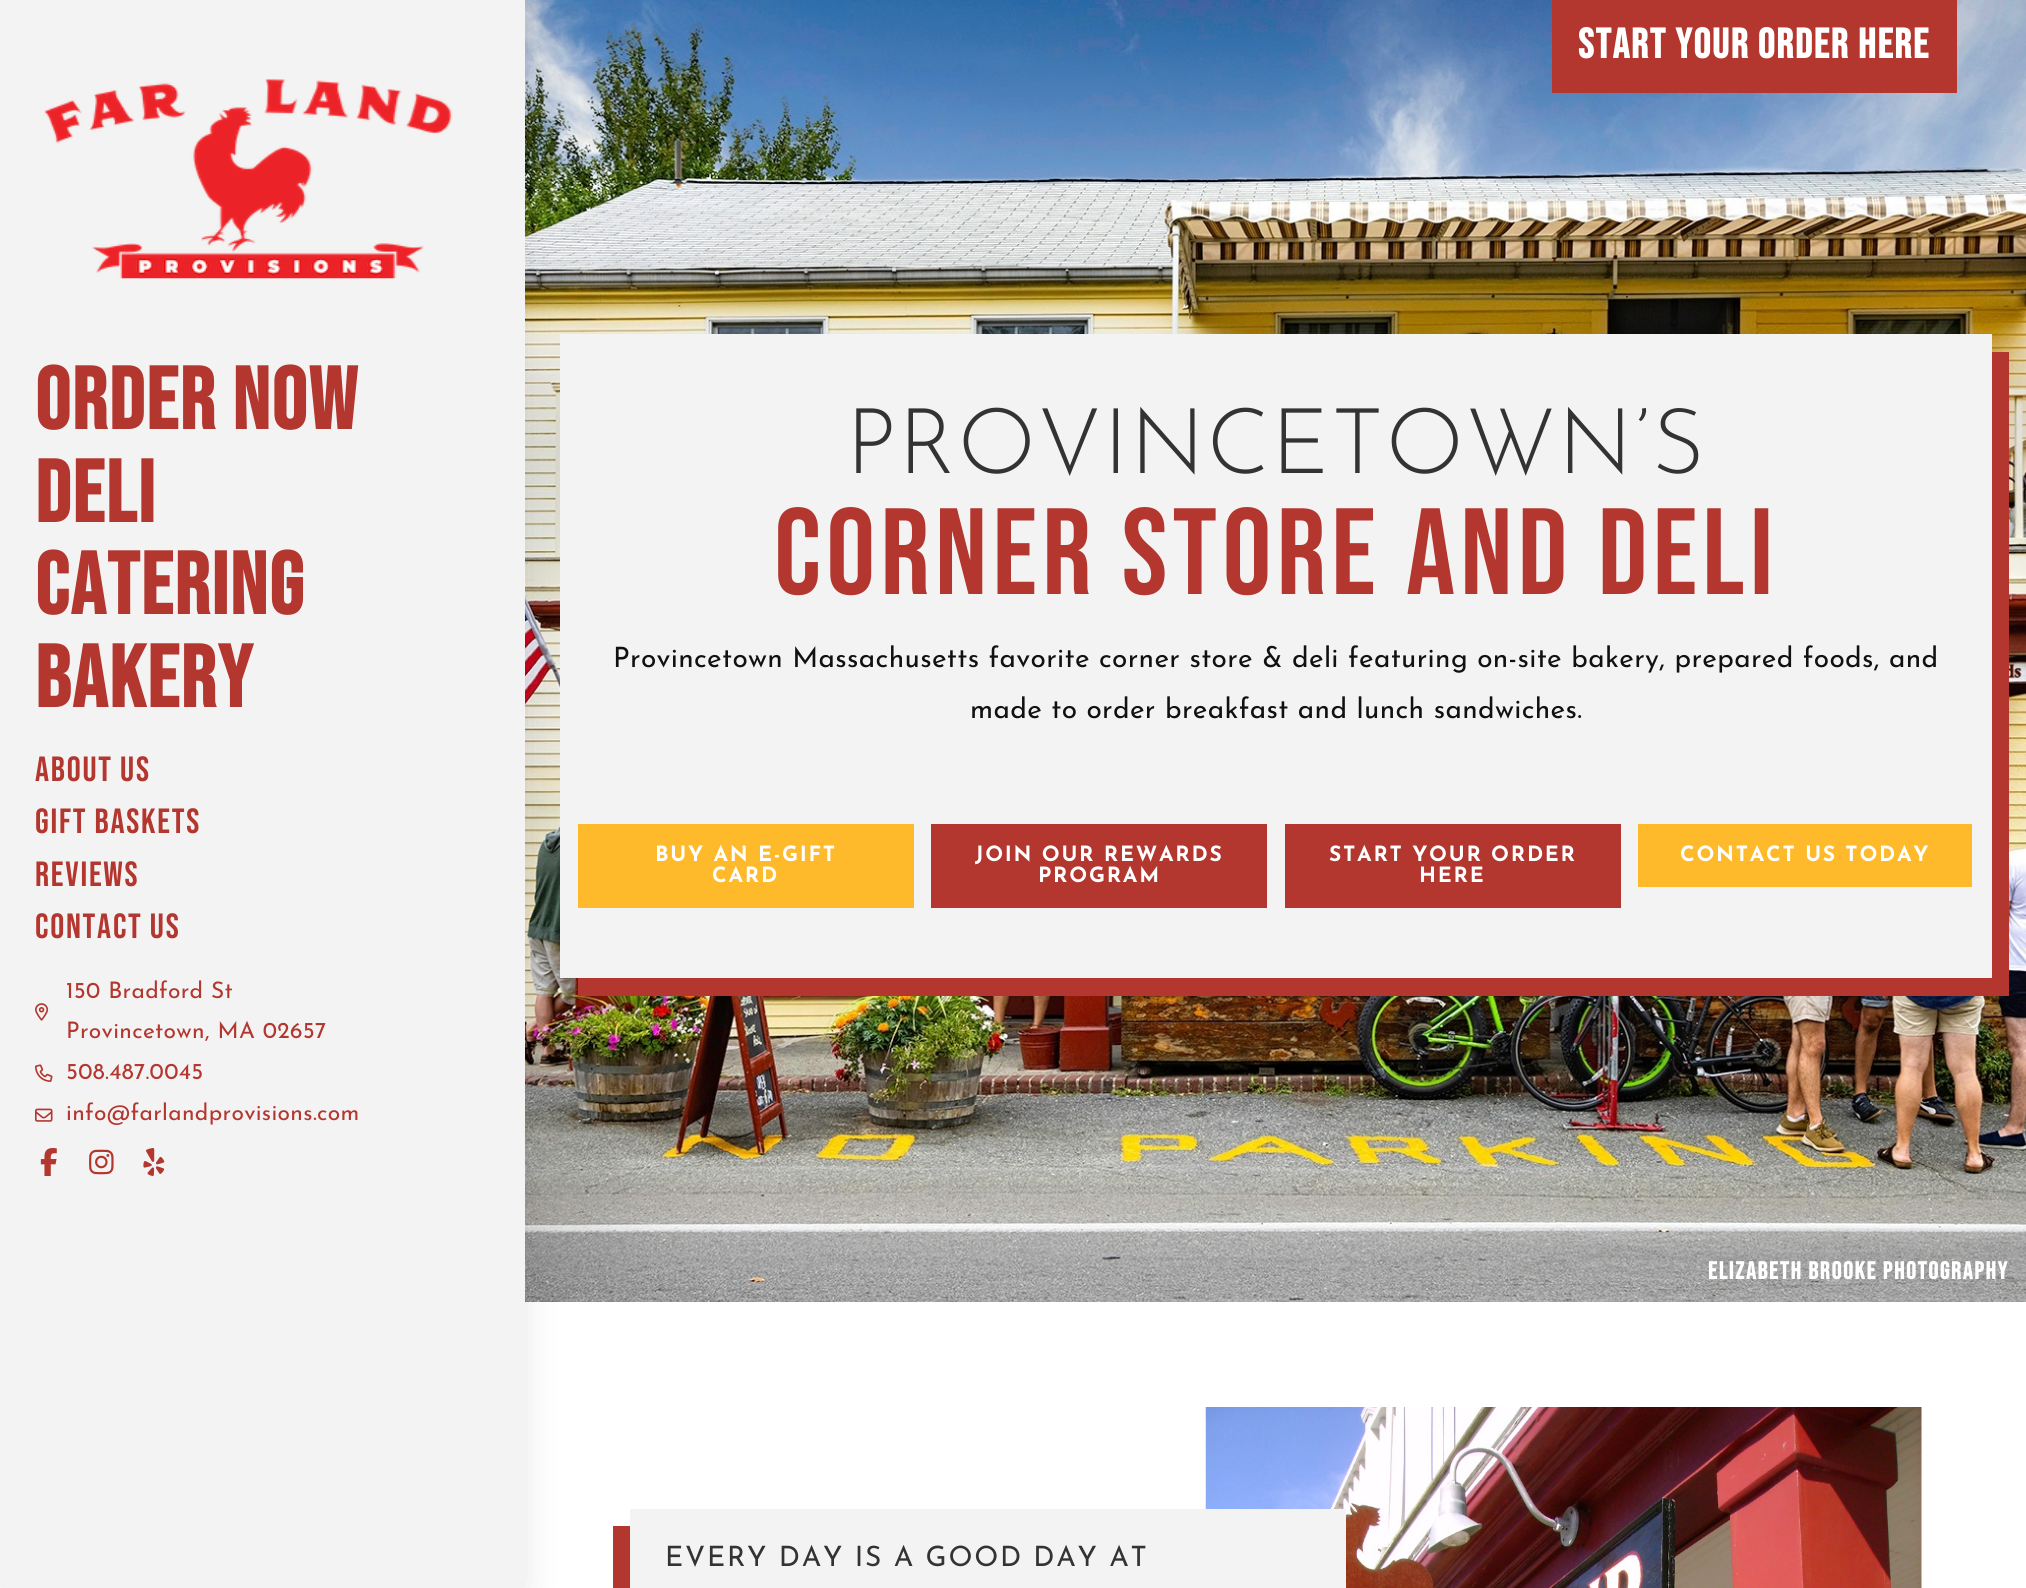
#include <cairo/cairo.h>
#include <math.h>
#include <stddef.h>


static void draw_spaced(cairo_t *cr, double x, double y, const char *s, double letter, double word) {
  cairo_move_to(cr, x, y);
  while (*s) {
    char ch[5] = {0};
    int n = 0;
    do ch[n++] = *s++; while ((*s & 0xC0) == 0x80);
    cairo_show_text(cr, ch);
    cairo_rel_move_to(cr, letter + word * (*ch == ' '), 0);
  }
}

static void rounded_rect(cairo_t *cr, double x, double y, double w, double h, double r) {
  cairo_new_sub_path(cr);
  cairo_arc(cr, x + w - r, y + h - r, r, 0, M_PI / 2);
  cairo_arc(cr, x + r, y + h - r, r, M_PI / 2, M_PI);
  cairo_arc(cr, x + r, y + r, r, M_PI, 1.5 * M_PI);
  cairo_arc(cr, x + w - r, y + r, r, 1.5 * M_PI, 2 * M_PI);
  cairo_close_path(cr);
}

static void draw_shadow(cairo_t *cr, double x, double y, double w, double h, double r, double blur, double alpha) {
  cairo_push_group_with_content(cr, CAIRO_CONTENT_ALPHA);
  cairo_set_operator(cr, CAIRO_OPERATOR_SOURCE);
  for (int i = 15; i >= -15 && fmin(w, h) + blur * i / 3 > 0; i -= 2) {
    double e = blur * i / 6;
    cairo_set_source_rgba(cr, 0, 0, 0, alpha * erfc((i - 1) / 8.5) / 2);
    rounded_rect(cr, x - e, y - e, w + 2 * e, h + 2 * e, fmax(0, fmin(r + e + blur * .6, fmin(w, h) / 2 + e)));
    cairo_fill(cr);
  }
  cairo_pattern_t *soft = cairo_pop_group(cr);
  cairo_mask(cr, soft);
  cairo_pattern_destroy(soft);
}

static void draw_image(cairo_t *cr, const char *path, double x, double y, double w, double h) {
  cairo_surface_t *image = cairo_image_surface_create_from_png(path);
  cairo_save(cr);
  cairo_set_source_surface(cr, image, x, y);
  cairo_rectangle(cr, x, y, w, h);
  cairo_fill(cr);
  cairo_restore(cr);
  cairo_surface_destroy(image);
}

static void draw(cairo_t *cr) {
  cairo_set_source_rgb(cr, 1, 1, 1);
  cairo_paint(cr);
  draw_image(cr, "images/8.png", 525, 0, 1501, 1302);
  cairo_set_source_rgb(cr, 179 / 255.0, 54 / 255.0, 47 / 255.0);
  cairo_rectangle(cr, 1552, 0, 405, 93);
  cairo_fill(cr);
  cairo_new_path(cr);
  cairo_move_to(cr, 578, 978);
  cairo_line_to(cr, 578, 996);
  cairo_line_to(cr, 2009, 996);
  cairo_line_to(cr, 2009, 352);
  cairo_line_to(cr, 1992, 352);
  cairo_line_to(cr, 1992, 978);
  cairo_close_path(cr);
  cairo_fill(cr);
  cairo_set_source_rgb(cr, 243 / 255.0, 243 / 255.0, 243 / 255.0);
  cairo_rectangle(cr, 560, 334, 1432, 644);
  cairo_fill(cr);
  cairo_set_source_rgb(cr, 1, 186 / 255.0, 44 / 255.0);
  cairo_rectangle(cr, 578, 824, 336, 84);
  cairo_fill(cr);
  cairo_set_source_rgb(cr, 0, 0, 0);
  draw_shadow(cr, 0, -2, 525, 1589, 0, 17.5, 0.1);
  cairo_set_source_rgb(cr, 243 / 255.0, 243 / 255.0, 243 / 255.0);
  cairo_rectangle(cr, 0, 0, 525, 1587);
  cairo_fill(cr);
  draw_image(cr, "images/1.png", 44, 79, 409, 200);
  draw_image(cr, "images/2.png", 35, 1003, 14, 18);
  draw_image(cr, "images/3.png", 35, 1064, 18, 18);
  draw_image(cr, "images/4.png", 35, 1108, 18, 14);
  draw_image(cr, "images/5.png", 40, 1148, 17, 28);
  draw_image(cr, "images/6.png", 89, 1149, 25, 26);
  draw_image(cr, "images/7.png", 143, 1148, 22, 28);
  cairo_set_source_rgb(cr, 179 / 255.0, 54 / 255.0, 47 / 255.0);
  cairo_rectangle(cr, 931, 824, 336, 84);
  cairo_fill(cr);
  cairo_rectangle(cr, 1285, 824, 336, 84);
  cairo_fill(cr);
  cairo_set_source_rgb(cr, 1, 186 / 255.0, 44 / 255.0);
  cairo_rectangle(cr, 1638, 824, 334, 63);
  cairo_fill(cr);
  cairo_set_source_rgb(cr, 179 / 255.0, 54 / 255.0, 47 / 255.0);
  cairo_new_path(cr);
  cairo_move_to(cr, 613, 1526);
  cairo_line_to(cr, 613, 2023);
  cairo_line_to(cr, 1328, 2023);
  cairo_line_to(cr, 1328, 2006);
  cairo_line_to(cr, 630, 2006);
  cairo_line_to(cr, 630, 1526);
  cairo_close_path(cr);
  cairo_fill(cr);
  draw_image(cr, "images/9.png", 1205, 1407, 717, 181);
  cairo_set_source_rgb(cr, 243 / 255.0, 243 / 255.0, 243 / 255.0);
  cairo_rectangle(cr, 630, 1509, 716, 79);
  cairo_fill(cr);
  cairo_select_font_face(cr, "Bebas Neue", CAIRO_FONT_SLANT_NORMAL, CAIRO_FONT_WEIGHT_BOLD);
  cairo_set_font_size(cr, 42);
  cairo_set_source_rgb(cr, 1, 1, 1);
  draw_spaced(cr, 1578, 58, "START YOUR ORDER HERE", 1.75, 0);
  cairo_set_font_size(cr, 87.5);
  cairo_set_source_rgb(cr, 179 / 255.0, 54 / 255.0, 47 / 255.0);
  draw_spaced(cr, 35, 429, "ORDER NOW", 1.75, 0);
  draw_spaced(cr, 35, 522, "DELI", 1.75, 0);
  draw_spaced(cr, 35, 614, "CATERING", 1.75, 0);
  draw_spaced(cr, 35, 707, "BAKERY", 1.75, 0);
  cairo_select_font_face(cr, "Bebas Neue", CAIRO_FONT_SLANT_NORMAL, CAIRO_FONT_WEIGHT_NORMAL);
  cairo_set_font_size(cr, 35);
  draw_spaced(cr, 35, 781, "About us", 1.75, 0);
  draw_spaced(cr, 35, 833, "Gift baskets", 1.75, 0);
  draw_spaced(cr, 35, 886, "Reviews", 1.75, 0);
  draw_spaced(cr, 35, 938, "Contact us", 1.75, 0);
  cairo_select_font_face(cr, "Josefin Sans", CAIRO_FONT_SLANT_NORMAL, CAIRO_FONT_WEIGHT_NORMAL);
  cairo_set_font_size(cr, 22.75);
  draw_spaced(cr, 66, 998, "150 Bradford St", 0.35, 0);
  draw_spaced(cr, 66, 1038, "Provincetown, MA 02657", 0.35, 0);
  draw_spaced(cr, 66, 1079, "508.487.0045", 0.35, 0);
  draw_spaced(cr, 66, 1120, "info@farlandprovisions.com", 0.35, 0);
  cairo_select_font_face(cr, "Josefin Sans Light", CAIRO_FONT_SLANT_NORMAL, CAIRO_FONT_WEIGHT_NORMAL);
  cairo_set_font_size(cr, 91);
  cairo_set_source_rgb(cr, 51 / 255.0, 51 / 255.0, 51 / 255.0);
  draw_spaced(cr, 846, 473, "PROVINCETOWN’S", 1.75, 0);
  cairo_select_font_face(cr, "Bebas Neue", CAIRO_FONT_SLANT_NORMAL, CAIRO_FONT_WEIGHT_NORMAL);
  cairo_set_font_size(cr, 122.5);
  cairo_set_source_rgb(cr, 179 / 255.0, 54 / 255.0, 47 / 255.0);
  draw_spaced(cr, 774, 594, "CORNER STORE AND DELI", 5.25, 0);
  cairo_select_font_face(cr, "Josefin Sans", CAIRO_FONT_SLANT_NORMAL, CAIRO_FONT_WEIGHT_NORMAL);
  cairo_set_font_size(cr, 28);
  cairo_set_source_rgb(cr, 17 / 255.0, 17 / 255.0, 17 / 255.0);
  draw_spaced(cr, 613, 667, "Provincetown Massachusetts favorite corner store & deli featuring on-site bakery, prepared foods, and", 0.35, 0);
  draw_spaced(cr, 970, 718, "made to order breakfast and lunch sandwiches.", 0.35, 0);
  cairo_select_font_face(cr, "Josefin Sans", CAIRO_FONT_SLANT_NORMAL, CAIRO_FONT_WEIGHT_BOLD);
  cairo_set_font_size(cr, 21);
  cairo_set_source_rgb(cr, 1, 1, 1);
  draw_spaced(cr, 655, 861, "BUY AN E-GIFT", 1.75, 0);
  draw_spaced(cr, 712, 882, "CARD", 1.75, 0);
  draw_spaced(cr, 975, 861, "JOIN OUR REWARDS", 1.75, 0);
  draw_spaced(cr, 1038, 882, "PROGRAM", 1.75, 0);
  draw_spaced(cr, 1329, 861, "START YOUR ORDER", 1.75, 0);
  draw_spaced(cr, 1419, 882, "HERE", 1.75, 0);
  draw_spaced(cr, 1680, 861, "CONTACT US TODAY", 1.75, 0);
  cairo_select_font_face(cr, "Bebas Neue", CAIRO_FONT_SLANT_NORMAL, CAIRO_FONT_WEIGHT_BOLD);
  cairo_set_font_size(cr, 24.5);
  draw_spaced(cr, 1708, 1279, "ELIZABETH BROOKE PHOTOGRAPHY", 1.75, 0);
  cairo_select_font_face(cr, "Josefin Sans", CAIRO_FONT_SLANT_NORMAL, CAIRO_FONT_WEIGHT_NORMAL);
  cairo_set_font_size(cr, 28);
  cairo_set_source_rgb(cr, 51 / 255.0, 51 / 255.0, 51 / 255.0);
  draw_spaced(cr, 665, 1566, "EVERY DAY IS A GOOD DAY AT", 1.75, 0);
}

int main(void) {
  cairo_surface_t *surface = cairo_image_surface_create(CAIRO_FORMAT_RGB24, 2026, 1588);
  cairo_t *cr = cairo_create(surface);
  cairo_font_options_t *options = cairo_font_options_create();
  cairo_font_options_set_hint_metrics(options, CAIRO_HINT_METRICS_OFF);
  cairo_font_options_set_hint_style(options, CAIRO_HINT_STYLE_NONE);
  cairo_set_font_options(cr, options);
  cairo_set_miter_limit(cr, 4);
  draw(cr);
  cairo_surface_write_to_png(surface, "out.png");
  cairo_font_options_destroy(options);
  cairo_destroy(cr);
  cairo_surface_destroy(surface);
  return 0;
}
